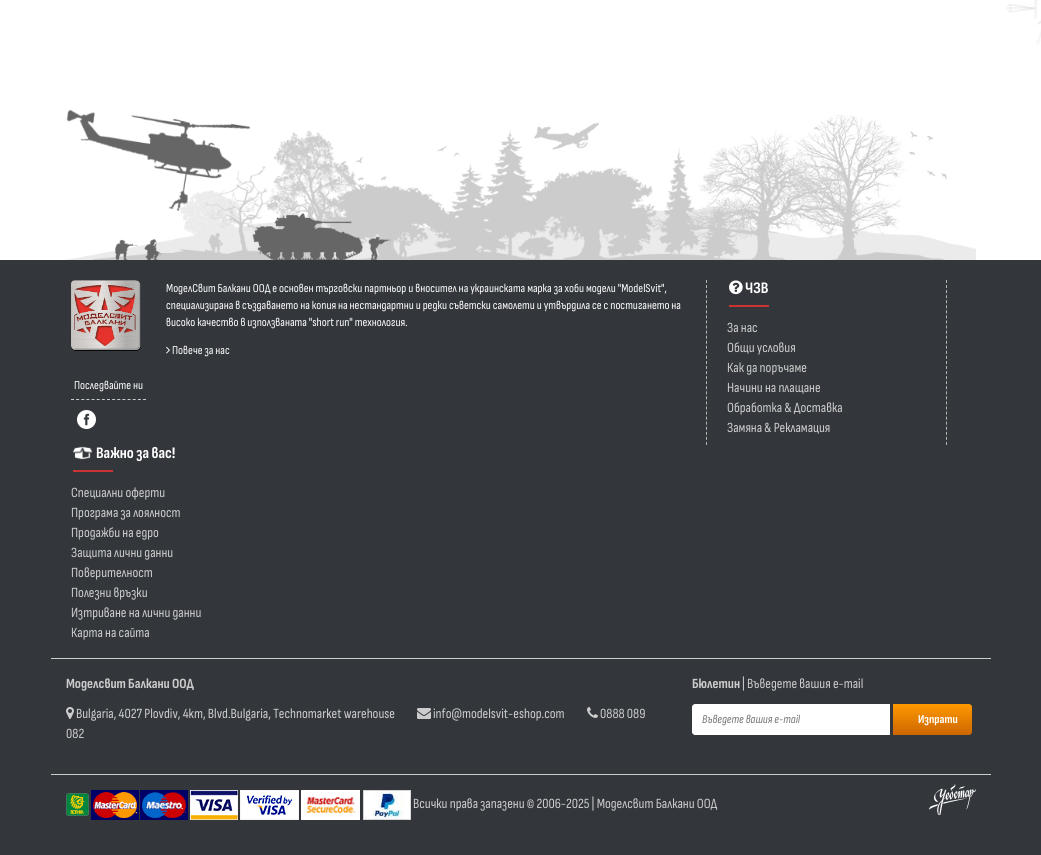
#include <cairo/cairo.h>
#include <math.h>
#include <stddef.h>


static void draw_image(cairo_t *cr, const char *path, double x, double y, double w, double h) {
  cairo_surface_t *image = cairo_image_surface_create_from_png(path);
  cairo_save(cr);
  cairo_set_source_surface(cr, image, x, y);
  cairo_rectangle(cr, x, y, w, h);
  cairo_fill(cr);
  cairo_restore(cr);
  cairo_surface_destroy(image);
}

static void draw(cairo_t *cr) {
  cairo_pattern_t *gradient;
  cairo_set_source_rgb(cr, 1, 1, 1);
  cairo_paint(cr);
  draw_image(cr, "images/1.png", 1006, 0, 35, 54);
  draw_image(cr, "images/2.png", 66, 109, 910, 151);
  cairo_set_source_rgb(cr, 51 / 255.0, 55 / 255.0, 60 / 255.0);
  cairo_rectangle(cr, 0, 260, 1041, 595);
  cairo_fill(cr);
  draw_image(cr, "images/3.png", 166, 346, 4, 8);
  cairo_new_path(cr);
  cairo_move_to(cr, 706.5, 280);
  cairo_line_to(cr, 706.5, 445);
  cairo_set_source_rgb(cr, 180 / 255.0, 181 / 255.0, 181 / 255.0);
  cairo_set_line_width(cr, 1);
  cairo_set_dash(cr, (double[]){3, 2.06}, 2, 0);
  cairo_stroke(cr);
  draw_image(cr, "images/4.png", 71, 280, 70, 71);
  cairo_new_path(cr);
  cairo_move_to(cr, 71, 399.5);
  cairo_line_to(cr, 146, 399.5);
  cairo_set_source_rgb(cr, 204 / 255.0, 204 / 255.0, 204 / 255.0);
  cairo_set_dash(cr, (double[]){3, 2.14}, 2, 0);
  cairo_stroke(cr);
  draw_image(cr, "images/5.png", 77, 410, 19, 19);
  draw_image(cr, "images/6.png", 729, 280, 14, 15);
  cairo_set_source_rgb(cr, 204 / 255.0, 51 / 255.0, 51 / 255.0);
  cairo_rectangle(cr, 729, 305, 40, 2);
  cairo_fill(cr);
  cairo_new_path(cr);
  cairo_move_to(cr, 946.5, 280);
  cairo_line_to(cr, 946.5, 445);
  cairo_set_source_rgb(cr, 180 / 255.0, 181 / 255.0, 181 / 255.0);
  cairo_set_dash(cr, (double[]){3, 2.06}, 2, 0);
  cairo_stroke(cr);
  draw_image(cr, "images/7.png", 73, 446, 20, 14);
  cairo_set_source_rgb(cr, 204 / 255.0, 51 / 255.0, 51 / 255.0);
  cairo_rectangle(cr, 73, 470, 40, 2);
  cairo_fill(cr);
  cairo_set_source_rgb(cr, 204 / 255.0, 204 / 255.0, 204 / 255.0);
  cairo_rectangle(cr, 51, 658, 940, 1);
  cairo_fill(cr);
  draw_image(cr, "images/8.png", 587, 707, 11, 11);
  draw_image(cr, "images/9.png", 66, 707, 8, 12);
  draw_image(cr, "images/10.png", 417, 708, 14, 11);
  cairo_set_source_rgb(cr, 1, 1, 1);
  cairo_new_path(cr);
  cairo_move_to(cr, 695, 704);
  cairo_line_to(cr, 890, 704);
  cairo_line_to(cr, 890, 735);
  cairo_line_to(cr, 695, 735);
  cairo_curve_to(cr, 693.5, 735, 692, 733.5, 692, 732);
  cairo_line_to(cr, 692, 707);
  cairo_curve_to(cr, 692, 705.5, 693.5, 704, 695, 704);
  cairo_close_path(cr);
  cairo_fill(cr);
  gradient = cairo_pattern_create_linear(933, 704, 933, 735);
  cairo_pattern_add_color_stop_rgba(gradient, 0, 1, 153 / 255.0, 0, 1);
  cairo_pattern_add_color_stop_rgba(gradient, 1, 204 / 255.0, 102 / 255.0, 0, 1);
  cairo_set_source(cr, gradient);
  cairo_pattern_destroy(gradient);
  cairo_new_path(cr);
  cairo_move_to(cr, 893, 704);
  cairo_line_to(cr, 969, 704);
  cairo_curve_to(cr, 970.5, 704, 972, 705.5, 972, 707);
  cairo_line_to(cr, 972, 732);
  cairo_curve_to(cr, 972, 733.5, 970.5, 735, 969, 735);
  cairo_line_to(cr, 893, 735);
  cairo_close_path(cr);
  cairo_fill(cr);
  cairo_set_source_rgb(cr, 204 / 255.0, 204 / 255.0, 204 / 255.0);
  cairo_rectangle(cr, 51, 774, 940, 1);
  cairo_fill(cr);
  draw_image(cr, "images/11.png", 66, 793, 23, 23);
  draw_image(cr, "images/12.png", 91, 790, 97, 30);
  draw_image(cr, "images/13.png", 190, 790, 48, 30);
  draw_image(cr, "images/14.png", 240, 790, 59, 30);
  draw_image(cr, "images/15.png", 301, 790, 59, 30);
  draw_image(cr, "images/16.png", 363, 790, 48, 30);
  draw_image(cr, "images/17.png", 929, 784, 47, 31);
  cairo_select_font_face(cr, "Sofia Sans Condensed", CAIRO_FONT_SLANT_NORMAL, CAIRO_FONT_WEIGHT_NORMAL);
  cairo_set_font_size(cr, 12);
  cairo_set_source_rgb(cr, 1, 1, 1);
  cairo_move_to(cr, 166, 292);
  cairo_show_text(cr, "МоделСвит Балкани ООД е основен търговски партньор и вносител на украинската марка за хоби модели \"ModelSvit\",");
  cairo_move_to(cr, 166, 309);
  cairo_show_text(cr, "специализирана в създаването на копия на нестандартни и редки съветски самолети и утвърдила се с постигането на");
  cairo_move_to(cr, 166, 326);
  cairo_show_text(cr, "високо качество в използваната \"short run\" технология.");
  cairo_move_to(cr, 172, 354);
  cairo_show_text(cr, "Повече за нас");
  cairo_move_to(cr, 74, 389);
  cairo_show_text(cr, "Последвайте ни");
  cairo_select_font_face(cr, "Sofia Sans Condensed", CAIRO_FONT_SLANT_NORMAL, CAIRO_FONT_WEIGHT_BOLD);
  cairo_set_font_size(cr, 16);
  cairo_move_to(cr, 745, 293);
  cairo_show_text(cr, "ЧЗВ");
  cairo_select_font_face(cr, "Sofia Sans Condensed", CAIRO_FONT_SLANT_NORMAL, CAIRO_FONT_WEIGHT_NORMAL);
  cairo_set_font_size(cr, 14);
  cairo_set_source_rgb(cr, 204 / 255.0, 204 / 255.0, 204 / 255.0);
  cairo_move_to(cr, 727, 332);
  cairo_show_text(cr, "За нас");
  cairo_move_to(cr, 727, 352);
  cairo_show_text(cr, "Общи условия");
  cairo_move_to(cr, 727, 372);
  cairo_show_text(cr, "Как да поръчаме");
  cairo_move_to(cr, 727, 392);
  cairo_show_text(cr, "Начини на плащане");
  cairo_move_to(cr, 727, 412);
  cairo_show_text(cr, "Обработка & Доставка");
  cairo_move_to(cr, 727, 432);
  cairo_show_text(cr, "Замяна & Рекламация");
  cairo_select_font_face(cr, "Sofia Sans Condensed", CAIRO_FONT_SLANT_NORMAL, CAIRO_FONT_WEIGHT_BOLD);
  cairo_set_font_size(cr, 16);
  cairo_set_source_rgb(cr, 1, 1, 1);
  cairo_move_to(cr, 96, 458);
  cairo_show_text(cr, "Важно за вас!");
  cairo_select_font_face(cr, "Sofia Sans Condensed", CAIRO_FONT_SLANT_NORMAL, CAIRO_FONT_WEIGHT_NORMAL);
  cairo_set_font_size(cr, 14);
  cairo_set_source_rgb(cr, 204 / 255.0, 204 / 255.0, 204 / 255.0);
  cairo_move_to(cr, 71, 497);
  cairo_show_text(cr, "Специални оферти");
  cairo_move_to(cr, 71, 517);
  cairo_show_text(cr, "Програма за лоялност");
  cairo_move_to(cr, 71, 537);
  cairo_show_text(cr, "Продажби на едро");
  cairo_move_to(cr, 71, 557);
  cairo_show_text(cr, "Защита лични данни");
  cairo_move_to(cr, 71, 577);
  cairo_show_text(cr, "Поверителност");
  cairo_move_to(cr, 71, 597);
  cairo_show_text(cr, "Полезни връзки");
  cairo_move_to(cr, 71, 617);
  cairo_show_text(cr, "Изтриване на лични данни");
  cairo_move_to(cr, 71, 637);
  cairo_show_text(cr, "Карта на сайта");
  cairo_select_font_face(cr, "Sofia Sans Condensed", CAIRO_FONT_SLANT_NORMAL, CAIRO_FONT_WEIGHT_BOLD);
  cairo_move_to(cr, 66, 688);
  cairo_show_text(cr, "Моделсвит Балкани ООД");
  cairo_select_font_face(cr, "Sofia Sans Condensed", CAIRO_FONT_SLANT_NORMAL, CAIRO_FONT_WEIGHT_NORMAL);
  cairo_move_to(cr, 600, 718);
  cairo_show_text(cr, "0888 089");
  cairo_move_to(cr, 66, 738);
  cairo_show_text(cr, "082");
  cairo_move_to(cr, 76, 718);
  cairo_show_text(cr, "Bulgaria, 4027 Plovdiv, 4km, Blvd.Bulgaria, Technomarket warehouse");
  cairo_move_to(cr, 433, 718);
  cairo_show_text(cr, "info@modelsvit-eshop.com");
  cairo_select_font_face(cr, "Sofia Sans Condensed", CAIRO_FONT_SLANT_NORMAL, CAIRO_FONT_WEIGHT_BOLD);
  cairo_move_to(cr, 692, 688);
  cairo_show_text(cr, "Бюлетин");
  cairo_select_font_face(cr, "Sofia Sans Condensed", CAIRO_FONT_SLANT_NORMAL, CAIRO_FONT_WEIGHT_NORMAL);
  cairo_move_to(cr, 742, 688);
  cairo_show_text(cr, "| Въведете вашия e-mail");
  cairo_select_font_face(cr, "Sofia Sans Condensed", CAIRO_FONT_SLANT_ITALIC, CAIRO_FONT_WEIGHT_NORMAL);
  cairo_set_font_size(cr, 12);
  cairo_set_source_rgb(cr, 117 / 255.0, 117 / 255.0, 117 / 255.0);
  cairo_move_to(cr, 702, 723);
  cairo_show_text(cr, "Въведете вашия e-mail");
  cairo_select_font_face(cr, "Sofia Sans Condensed", CAIRO_FONT_SLANT_NORMAL, CAIRO_FONT_WEIGHT_BOLD);
  cairo_set_source_rgb(cr, 1, 1, 1);
  cairo_move_to(cr, 918, 723);
  cairo_show_text(cr, "Изпрати");
  cairo_select_font_face(cr, "Sofia Sans Condensed", CAIRO_FONT_SLANT_NORMAL, CAIRO_FONT_WEIGHT_NORMAL);
  cairo_set_font_size(cr, 14);
  cairo_set_source_rgb(cr, 204 / 255.0, 204 / 255.0, 204 / 255.0);
  cairo_move_to(cr, 413, 808);
  cairo_show_text(cr, "Всички права запазени © 2006-2025 | Моделсвит Балкани ООД");
}

int main(void) {
  cairo_surface_t *surface = cairo_image_surface_create(CAIRO_FORMAT_RGB24, 1041, 855);
  cairo_t *cr = cairo_create(surface);
  cairo_font_options_t *options = cairo_font_options_create();
  cairo_font_options_set_hint_metrics(options, CAIRO_HINT_METRICS_OFF);
  cairo_font_options_set_hint_style(options, CAIRO_HINT_STYLE_NONE);
  cairo_set_font_options(cr, options);
  cairo_set_miter_limit(cr, 4);
  draw(cr);
  cairo_surface_write_to_png(surface, "out.png");
  cairo_font_options_destroy(options);
  cairo_destroy(cr);
  cairo_surface_destroy(surface);
  return 0;
}
